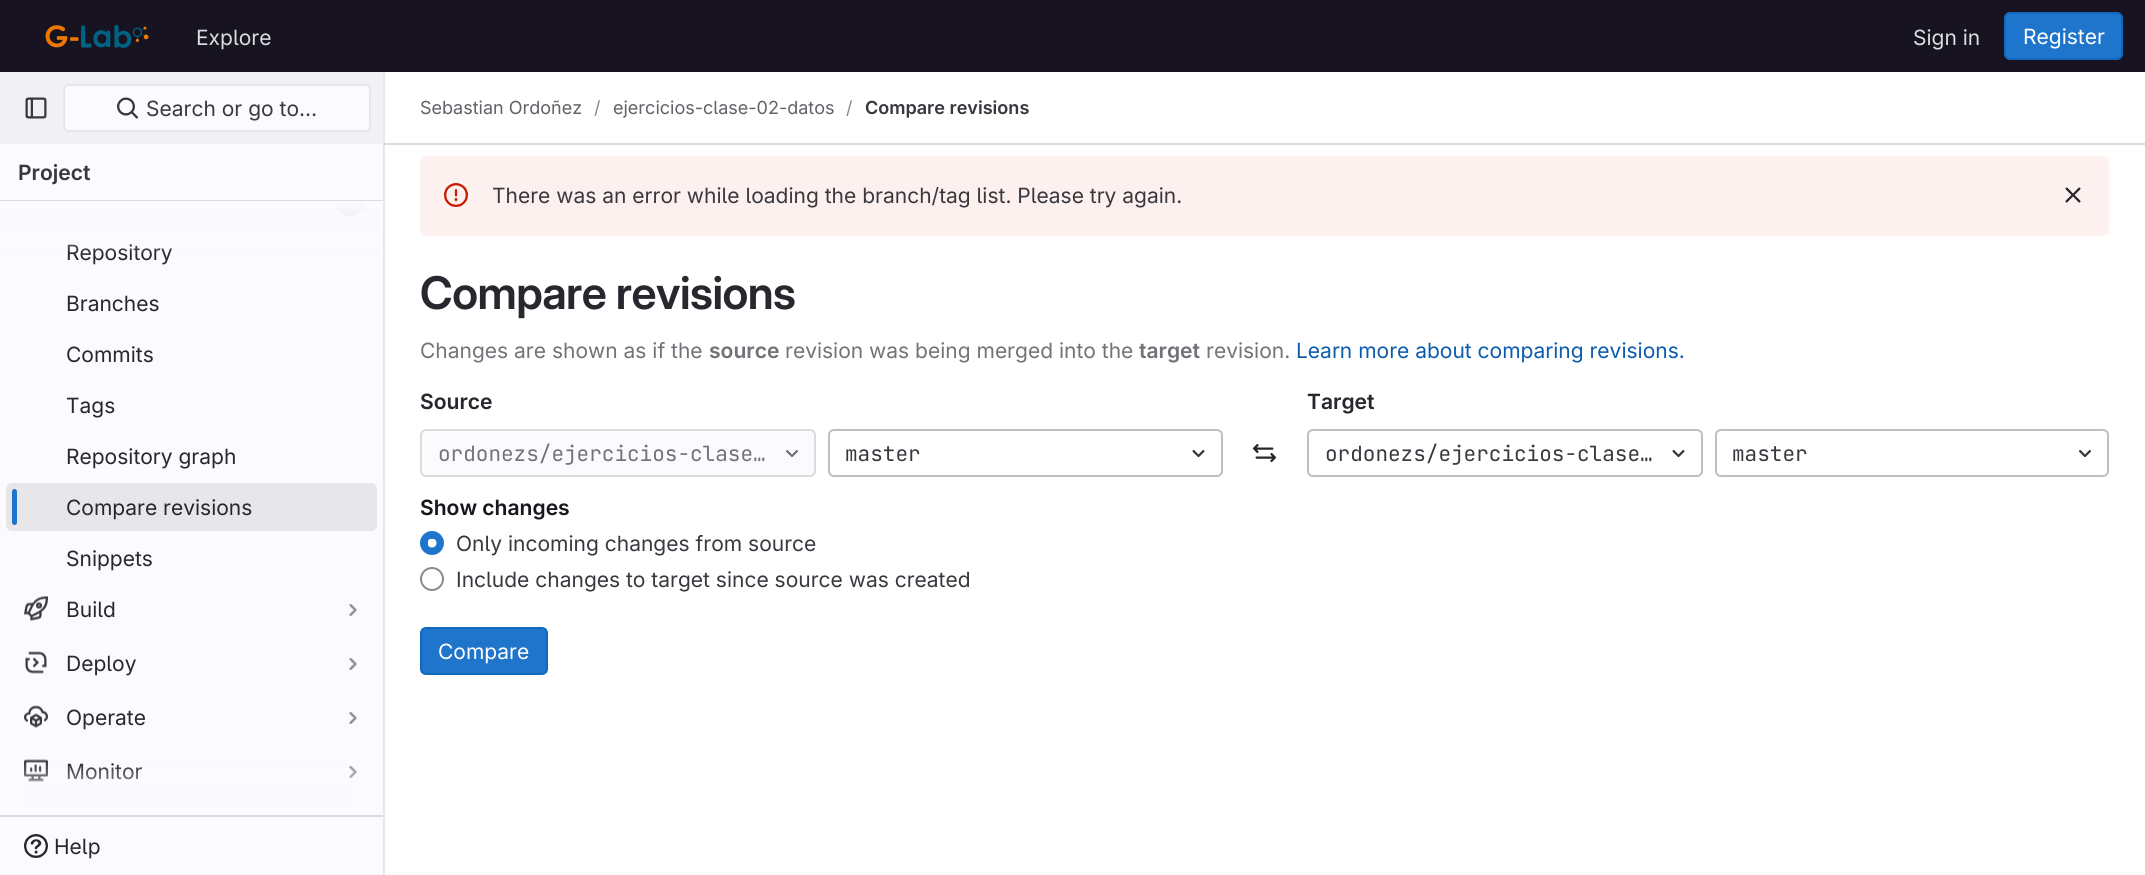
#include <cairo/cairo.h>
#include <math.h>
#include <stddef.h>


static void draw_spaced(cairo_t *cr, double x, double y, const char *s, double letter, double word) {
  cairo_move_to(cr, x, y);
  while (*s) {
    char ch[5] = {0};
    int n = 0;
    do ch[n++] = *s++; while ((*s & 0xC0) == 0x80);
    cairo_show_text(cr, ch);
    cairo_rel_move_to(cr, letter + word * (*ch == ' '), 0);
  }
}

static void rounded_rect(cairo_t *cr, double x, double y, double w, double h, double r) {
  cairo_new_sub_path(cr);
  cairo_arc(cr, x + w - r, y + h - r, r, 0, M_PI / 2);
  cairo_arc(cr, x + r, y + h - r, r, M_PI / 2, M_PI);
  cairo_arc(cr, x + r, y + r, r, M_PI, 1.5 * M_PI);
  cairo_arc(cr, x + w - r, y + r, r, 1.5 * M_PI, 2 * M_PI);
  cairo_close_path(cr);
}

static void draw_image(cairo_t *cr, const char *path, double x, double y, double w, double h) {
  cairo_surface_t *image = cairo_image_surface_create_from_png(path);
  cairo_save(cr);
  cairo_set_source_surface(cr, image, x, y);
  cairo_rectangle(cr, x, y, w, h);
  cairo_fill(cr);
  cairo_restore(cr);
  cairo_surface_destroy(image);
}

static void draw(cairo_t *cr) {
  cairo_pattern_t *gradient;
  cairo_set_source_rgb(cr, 1, 1, 1);
  cairo_paint(cr);
  cairo_set_source_rgb(cr, 235 / 255.0, 235 / 255.0, 235 / 255.0);
  cairo_rectangle(cr, 384, 72, 1, 803);
  cairo_fill(cr);
  cairo_set_source_rgb(cr, 23 / 255.0, 19 / 255.0, 33 / 255.0);
  cairo_rectangle(cr, 0, 0, 2145, 72);
  cairo_fill(cr);
  draw_image(cr, "images/1.png", 45, 24, 104, 24);
  cairo_set_source_rgb(cr, 31 / 255.0, 117 / 255.0, 203 / 255.0);
  rounded_rect(cr, 2005, 13, 117, 46, 5);
  cairo_fill_preserve(cr);
  cairo_set_source_rgb(cr, 16 / 255.0, 104 / 255.0, 191 / 255.0);
  cairo_stroke(cr);
  cairo_set_source_rgb(cr, 251 / 255.0, 250 / 255.0, 253 / 255.0);
  cairo_rectangle(cr, 0, 144, 383, 731);
  cairo_fill(cr);
  cairo_set_source_rgb(cr, 231 / 255.0, 230 / 255.0, 233 / 255.0);
  cairo_rectangle(cr, 383, 72, 1, 803);
  cairo_fill(cr);
  cairo_set_source_rgb(cr, 241 / 255.0, 240 / 255.0, 243 / 255.0);
  cairo_rectangle(cr, 0, 72, 383, 72);
  cairo_fill(cr);
  draw_image(cr, "images/2.png", 25, 97, 22, 22);
  cairo_set_source_rgb(cr, 251 / 255.0, 250 / 255.0, 253 / 255.0);
  rounded_rect(cr, 64, 85, 306, 46, 5);
  cairo_fill_preserve(cr);
  cairo_set_source_rgb(cr, 231 / 255.0, 230 / 255.0, 233 / 255.0);
  cairo_stroke(cr);
  draw_image(cr, "images/3.png", 117, 97, 21, 22);
  cairo_set_source_rgb(cr, 220 / 255.0, 220 / 255.0, 222 / 255.0);
  cairo_rectangle(cr, 0, 200, 383, 2);
  cairo_fill(cr);
  cairo_rectangle(cr, 0, 815, 383, 2);
  cairo_fill(cr);
  cairo_new_path(cr);
  cairo_move_to(cr, 335, 201);
  cairo_line_to(cr, 365, 201);
  cairo_curve_to(cr, 365, 209.5, 358.5, 216, 350, 216);
  cairo_curve_to(cr, 341.5, 216, 335, 209.5, 335, 201);
  cairo_close_path(cr);
  cairo_fill(cr);
  cairo_set_source_rgb(cr, 231 / 255.0, 230 / 255.0, 233 / 255.0);
  rounded_rect(cr, 6, 483, 371, 48, 6);
  cairo_fill(cr);
  cairo_set_source_rgb(cr, 31 / 255.0, 117 / 255.0, 203 / 255.0);
  rounded_rect(cr, 12, 489, 5, 36, 2.5);
  cairo_fill(cr);
  draw_image(cr, "images/4.png", 24, 596, 24, 25);
  draw_image(cr, "images/5.png", 349, 604, 8, 12);
  draw_image(cr, "images/6.png", 25, 651, 22, 23);
  draw_image(cr, "images/5.png", 349, 658, 8, 12);
  draw_image(cr, "images/7.png", 24, 705, 24, 23);
  draw_image(cr, "images/5.png", 349, 712, 8, 12);
  draw_image(cr, "images/8.png", 24, 759, 24, 23);
  draw_image(cr, "images/5.png", 349, 766, 8, 12);
  draw_image(cr, "images/9.png", 28, 813, 3, 2);
  draw_image(cr, "images/10.png", 24, 834, 24, 24);
  cairo_set_source_rgb(cr, 220 / 255.0, 220 / 255.0, 222 / 255.0);
  cairo_rectangle(cr, 384, 143, 1761, 2);
  cairo_fill(cr);
  cairo_set_source_rgb(cr, 203 / 255.0, 203 / 255.0, 205 / 255.0);
  cairo_rectangle(cr, 384, 143, 1, 2);
  cairo_fill(cr);
  cairo_set_source_rgb(cr, 252 / 255.0, 241 / 255.0, 239 / 255.0);
  rounded_rect(cr, 420, 156, 1689, 80, 6);
  cairo_fill(cr);
  draw_image(cr, "images/11.png", 444, 183, 24, 24);
  draw_image(cr, "images/12.png", 2065, 187, 16, 16);
  cairo_set_source_rgb(cr, 251 / 255.0, 250 / 255.0, 253 / 255.0);
  rounded_rect(cr, 421, 430, 394, 46, 5);
  cairo_fill_preserve(cr);
  cairo_set_source_rgb(cr, 220 / 255.0, 220 / 255.0, 222 / 255.0);
  cairo_stroke(cr);
  draw_image(cr, "images/13.png", 786, 450, 12, 8);
  rounded_rect(cr, 829, 430, 393, 46, 5);
  cairo_set_source_rgb(cr, 191 / 255.0, 191 / 255.0, 195 / 255.0);
  cairo_stroke(cr);
  draw_image(cr, "images/14.png", 1192, 450, 13, 8);
  draw_image(cr, "images/15.png", 1252, 444, 25, 18);
  rounded_rect(cr, 1308, 430, 394, 46, 5);
  cairo_stroke(cr);
  draw_image(cr, "images/14.png", 1672, 450, 13, 8);
  rounded_rect(cr, 1716, 430, 392, 46, 5);
  cairo_stroke(cr);
  draw_image(cr, "images/16.png", 2079, 450, 12, 8);
  cairo_set_source_rgb(cr, 31 / 255.0, 117 / 255.0, 203 / 255.0);
  cairo_arc(cr, 432, 543, 11, 0, 2 * M_PI);
  cairo_fill_preserve(cr);
  cairo_stroke(cr);
  cairo_save(cr);
  cairo_rectangle(cr, 428, 539, 9, 9);
  cairo_clip(cr);
  cairo_set_source_rgb(cr, 1, 1, 1);
  cairo_arc(cr, 432, 543, 4.5, 0, 2 * M_PI);
  cairo_fill(cr);
  cairo_restore(cr);
  cairo_arc(cr, 432, 579, 11, 0, 2 * M_PI);
  cairo_set_source_rgb(cr, 137 / 255.0, 136 / 255.0, 141 / 255.0);
  cairo_stroke(cr);
  cairo_set_source_rgb(cr, 31 / 255.0, 117 / 255.0, 203 / 255.0);
  rounded_rect(cr, 421, 628, 126, 46, 5);
  cairo_fill_preserve(cr);
  cairo_set_source_rgb(cr, 16 / 255.0, 104 / 255.0, 191 / 255.0);
  cairo_stroke(cr);
  cairo_select_font_face(cr, "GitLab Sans", CAIRO_FONT_SLANT_NORMAL, CAIRO_FONT_WEIGHT_NORMAL);
  cairo_set_font_size(cr, 21);
  cairo_set_source_rgb(cr, 220 / 255.0, 220 / 255.0, 222 / 255.0);
  cairo_move_to(cr, 196, 45);
  cairo_show_text(cr, "Explore");
  cairo_move_to(cr, 1913, 45);
  cairo_show_text(cr, "Sign in");
  cairo_set_source_rgb(cr, 1, 1, 1);
  cairo_move_to(cr, 2023, 44);
  cairo_show_text(cr, "Register");
  cairo_set_source_rgb(cr, 58 / 255.0, 56 / 255.0, 63 / 255.0);
  cairo_move_to(cr, 146, 116);
  cairo_show_text(cr, "Search or go to…");
  cairo_select_font_face(cr, "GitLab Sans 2 SemiBold", CAIRO_FONT_SLANT_NORMAL, CAIRO_FONT_WEIGHT_NORMAL);
  cairo_move_to(cr, 18, 180);
  cairo_show_text(cr, "Project");
  cairo_select_font_face(cr, "GitLab Sans", CAIRO_FONT_SLANT_NORMAL, CAIRO_FONT_WEIGHT_NORMAL);
  cairo_set_source_rgb(cr, 40 / 255.0, 39 / 255.0, 45 / 255.0);
  cairo_move_to(cr, 66, 260);
  cairo_show_text(cr, "Repository");
  gradient = cairo_pattern_create_linear(191, 201, 191, 255);
  cairo_pattern_add_color_stop_rgba(gradient, 0, 251 / 255.0, 250 / 255.0, 253 / 255.0, 1);
  cairo_pattern_add_color_stop_rgba(gradient, 1, 251 / 255.0, 250 / 255.0, 253 / 255.0, 0);
  cairo_set_source(cr, gradient);
  cairo_pattern_destroy(gradient);
  cairo_rectangle(cr, 0, 201, 383, 53);
  cairo_fill(cr);
  cairo_set_source_rgb(cr, 40 / 255.0, 39 / 255.0, 45 / 255.0);
  cairo_move_to(cr, 66, 311);
  cairo_show_text(cr, "Branches");
  cairo_move_to(cr, 66, 362);
  cairo_show_text(cr, "Commits");
  cairo_move_to(cr, 66, 413);
  cairo_show_text(cr, "Tags");
  cairo_move_to(cr, 66, 464);
  cairo_show_text(cr, "Repository graph");
  cairo_move_to(cr, 66, 515);
  cairo_show_text(cr, "Compare revisions");
  cairo_move_to(cr, 66, 566);
  cairo_show_text(cr, "Snippets");
  cairo_move_to(cr, 66, 617);
  cairo_show_text(cr, "Build");
  cairo_move_to(cr, 66, 671);
  cairo_show_text(cr, "Deploy");
  cairo_move_to(cr, 66, 725);
  cairo_show_text(cr, "Operate");
  cairo_move_to(cr, 66, 779);
  cairo_show_text(cr, "Monitor");
  gradient = cairo_pattern_create_linear(191, 761, 191, 815);
  cairo_pattern_add_color_stop_rgba(gradient, 0, 251 / 255.0, 250 / 255.0, 253 / 255.0, 0);
  cairo_pattern_add_color_stop_rgba(gradient, 1, 251 / 255.0, 250 / 255.0, 253 / 255.0, 1);
  cairo_set_source(cr, gradient);
  cairo_pattern_destroy(gradient);
  cairo_rectangle(cr, 24, 762, 333, 53);
  cairo_fill(cr);
  cairo_set_source_rgb(cr, 40 / 255.0, 39 / 255.0, 45 / 255.0);
  cairo_move_to(cr, 54, 854);
  cairo_show_text(cr, "Help");
  cairo_set_font_size(cr, 18);
  cairo_set_source_rgb(cr, 98 / 255.0, 97 / 255.0, 104 / 255.0);
  cairo_move_to(cr, 420, 114);
  cairo_show_text(cr, "Sebastian Ordoñez");
  cairo_set_source_rgb(cr, 137 / 255.0, 136 / 255.0, 141 / 255.0);
  cairo_move_to(cr, 594, 114);
  cairo_show_text(cr, "/");
  cairo_set_source_rgb(cr, 98 / 255.0, 97 / 255.0, 104 / 255.0);
  cairo_move_to(cr, 613, 114);
  cairo_show_text(cr, "ejercicios-clase-02-datos");
  cairo_set_source_rgb(cr, 137 / 255.0, 136 / 255.0, 141 / 255.0);
  cairo_move_to(cr, 846, 114);
  cairo_show_text(cr, "/");
  cairo_select_font_face(cr, "GitLab Sans 2 SemiBold", CAIRO_FONT_SLANT_NORMAL, CAIRO_FONT_WEIGHT_NORMAL);
  cairo_set_source_rgb(cr, 58 / 255.0, 56 / 255.0, 63 / 255.0);
  cairo_move_to(cr, 865, 114);
  cairo_show_text(cr, "Compare revisions");
  cairo_select_font_face(cr, "GitLab Sans", CAIRO_FONT_SLANT_NORMAL, CAIRO_FONT_WEIGHT_NORMAL);
  cairo_set_font_size(cr, 21);
  cairo_move_to(cr, 492, 203);
  cairo_show_text(cr, "There was an error while loading the branch/tag list. Please try again.");
  cairo_select_font_face(cr, "GitLab Sans SemiBold", CAIRO_FONT_SLANT_NORMAL, CAIRO_FONT_WEIGHT_NORMAL);
  cairo_set_font_size(cr, 45);
  cairo_set_source_rgb(cr, 40 / 255.0, 39 / 255.0, 45 / 255.0);
  draw_spaced(cr, 420, 309, "Compare revisions", -0.5, 0);
  cairo_select_font_face(cr, "GitLab Sans", CAIRO_FONT_SLANT_NORMAL, CAIRO_FONT_WEIGHT_NORMAL);
  cairo_set_font_size(cr, 21);
  cairo_set_source_rgb(cr, 115 / 255.0, 114 / 255.0, 120 / 255.0);
  cairo_move_to(cr, 420, 358);
  cairo_show_text(cr, "Changes are shown as if the");
  cairo_select_font_face(cr, "GitLab Sans 2 SemiBold", CAIRO_FONT_SLANT_NORMAL, CAIRO_FONT_WEIGHT_NORMAL);
  cairo_move_to(cr, 709, 358);
  cairo_show_text(cr, "source");
  cairo_select_font_face(cr, "GitLab Sans", CAIRO_FONT_SLANT_NORMAL, CAIRO_FONT_WEIGHT_NORMAL);
  cairo_move_to(cr, 785, 358);
  cairo_show_text(cr, "revision was being merged into the");
  cairo_select_font_face(cr, "GitLab Sans 2 SemiBold", CAIRO_FONT_SLANT_NORMAL, CAIRO_FONT_WEIGHT_NORMAL);
  cairo_move_to(cr, 1139, 358);
  cairo_show_text(cr, "target");
  cairo_select_font_face(cr, "GitLab Sans", CAIRO_FONT_SLANT_NORMAL, CAIRO_FONT_WEIGHT_NORMAL);
  cairo_move_to(cr, 1206, 358);
  cairo_show_text(cr, "revision.");
  cairo_set_source_rgb(cr, 11 / 255.0, 92 / 255.0, 173 / 255.0);
  cairo_move_to(cr, 1296, 358);
  cairo_show_text(cr, "Learn more about comparing revisions.");
  cairo_select_font_face(cr, "GitLab Sans 2 SemiBold", CAIRO_FONT_SLANT_NORMAL, CAIRO_FONT_WEIGHT_NORMAL);
  cairo_set_source_rgb(cr, 40 / 255.0, 39 / 255.0, 45 / 255.0);
  cairo_move_to(cr, 420, 409);
  cairo_show_text(cr, "Source");
  cairo_select_font_face(cr, "JetBrains Mono", CAIRO_FONT_SLANT_NORMAL, CAIRO_FONT_WEIGHT_NORMAL);
  cairo_set_source_rgb(cr, 115 / 255.0, 114 / 255.0, 120 / 255.0);
  cairo_move_to(cr, 438, 461);
  cairo_show_text(cr, "ordonezs/ejercicios-clase…");
  cairo_set_source_rgb(cr, 58 / 255.0, 56 / 255.0, 63 / 255.0);
  cairo_move_to(cr, 845, 461);
  cairo_show_text(cr, "master");
  cairo_select_font_face(cr, "GitLab Sans 2 SemiBold", CAIRO_FONT_SLANT_NORMAL, CAIRO_FONT_WEIGHT_NORMAL);
  cairo_set_source_rgb(cr, 40 / 255.0, 39 / 255.0, 45 / 255.0);
  cairo_move_to(cr, 1307, 409);
  cairo_show_text(cr, "Target");
  cairo_select_font_face(cr, "JetBrains Mono", CAIRO_FONT_SLANT_NORMAL, CAIRO_FONT_WEIGHT_NORMAL);
  cairo_set_source_rgb(cr, 58 / 255.0, 56 / 255.0, 63 / 255.0);
  cairo_move_to(cr, 1325, 461);
  cairo_show_text(cr, "ordonezs/ejercicios-clase…");
  cairo_move_to(cr, 1732, 461);
  cairo_show_text(cr, "master");
  cairo_select_font_face(cr, "GitLab Sans 2 SemiBold", CAIRO_FONT_SLANT_NORMAL, CAIRO_FONT_WEIGHT_NORMAL);
  cairo_set_source_rgb(cr, 24 / 255.0, 23 / 255.0, 29 / 255.0);
  cairo_move_to(cr, 420, 515);
  cairo_show_text(cr, "Show changes");
  cairo_select_font_face(cr, "GitLab Sans", CAIRO_FONT_SLANT_NORMAL, CAIRO_FONT_WEIGHT_NORMAL);
  cairo_set_source_rgb(cr, 58 / 255.0, 56 / 255.0, 63 / 255.0);
  cairo_move_to(cr, 456, 551);
  cairo_show_text(cr, "Only incoming changes from source");
  cairo_move_to(cr, 456, 587);
  cairo_show_text(cr, "Include changes to target since source was created");
  cairo_set_source_rgb(cr, 1, 1, 1);
  cairo_move_to(cr, 438, 659);
  cairo_show_text(cr, "Compare");
}

int main(void) {
  cairo_surface_t *surface = cairo_image_surface_create(CAIRO_FORMAT_RGB24, 2145, 875);
  cairo_t *cr = cairo_create(surface);
  cairo_font_options_t *options = cairo_font_options_create();
  cairo_font_options_set_hint_metrics(options, CAIRO_HINT_METRICS_OFF);
  cairo_font_options_set_hint_style(options, CAIRO_HINT_STYLE_NONE);
  cairo_set_font_options(cr, options);
  cairo_set_miter_limit(cr, 4);
  draw(cr);
  cairo_surface_write_to_png(surface, "out.png");
  cairo_font_options_destroy(options);
  cairo_destroy(cr);
  cairo_surface_destroy(surface);
  return 0;
}
